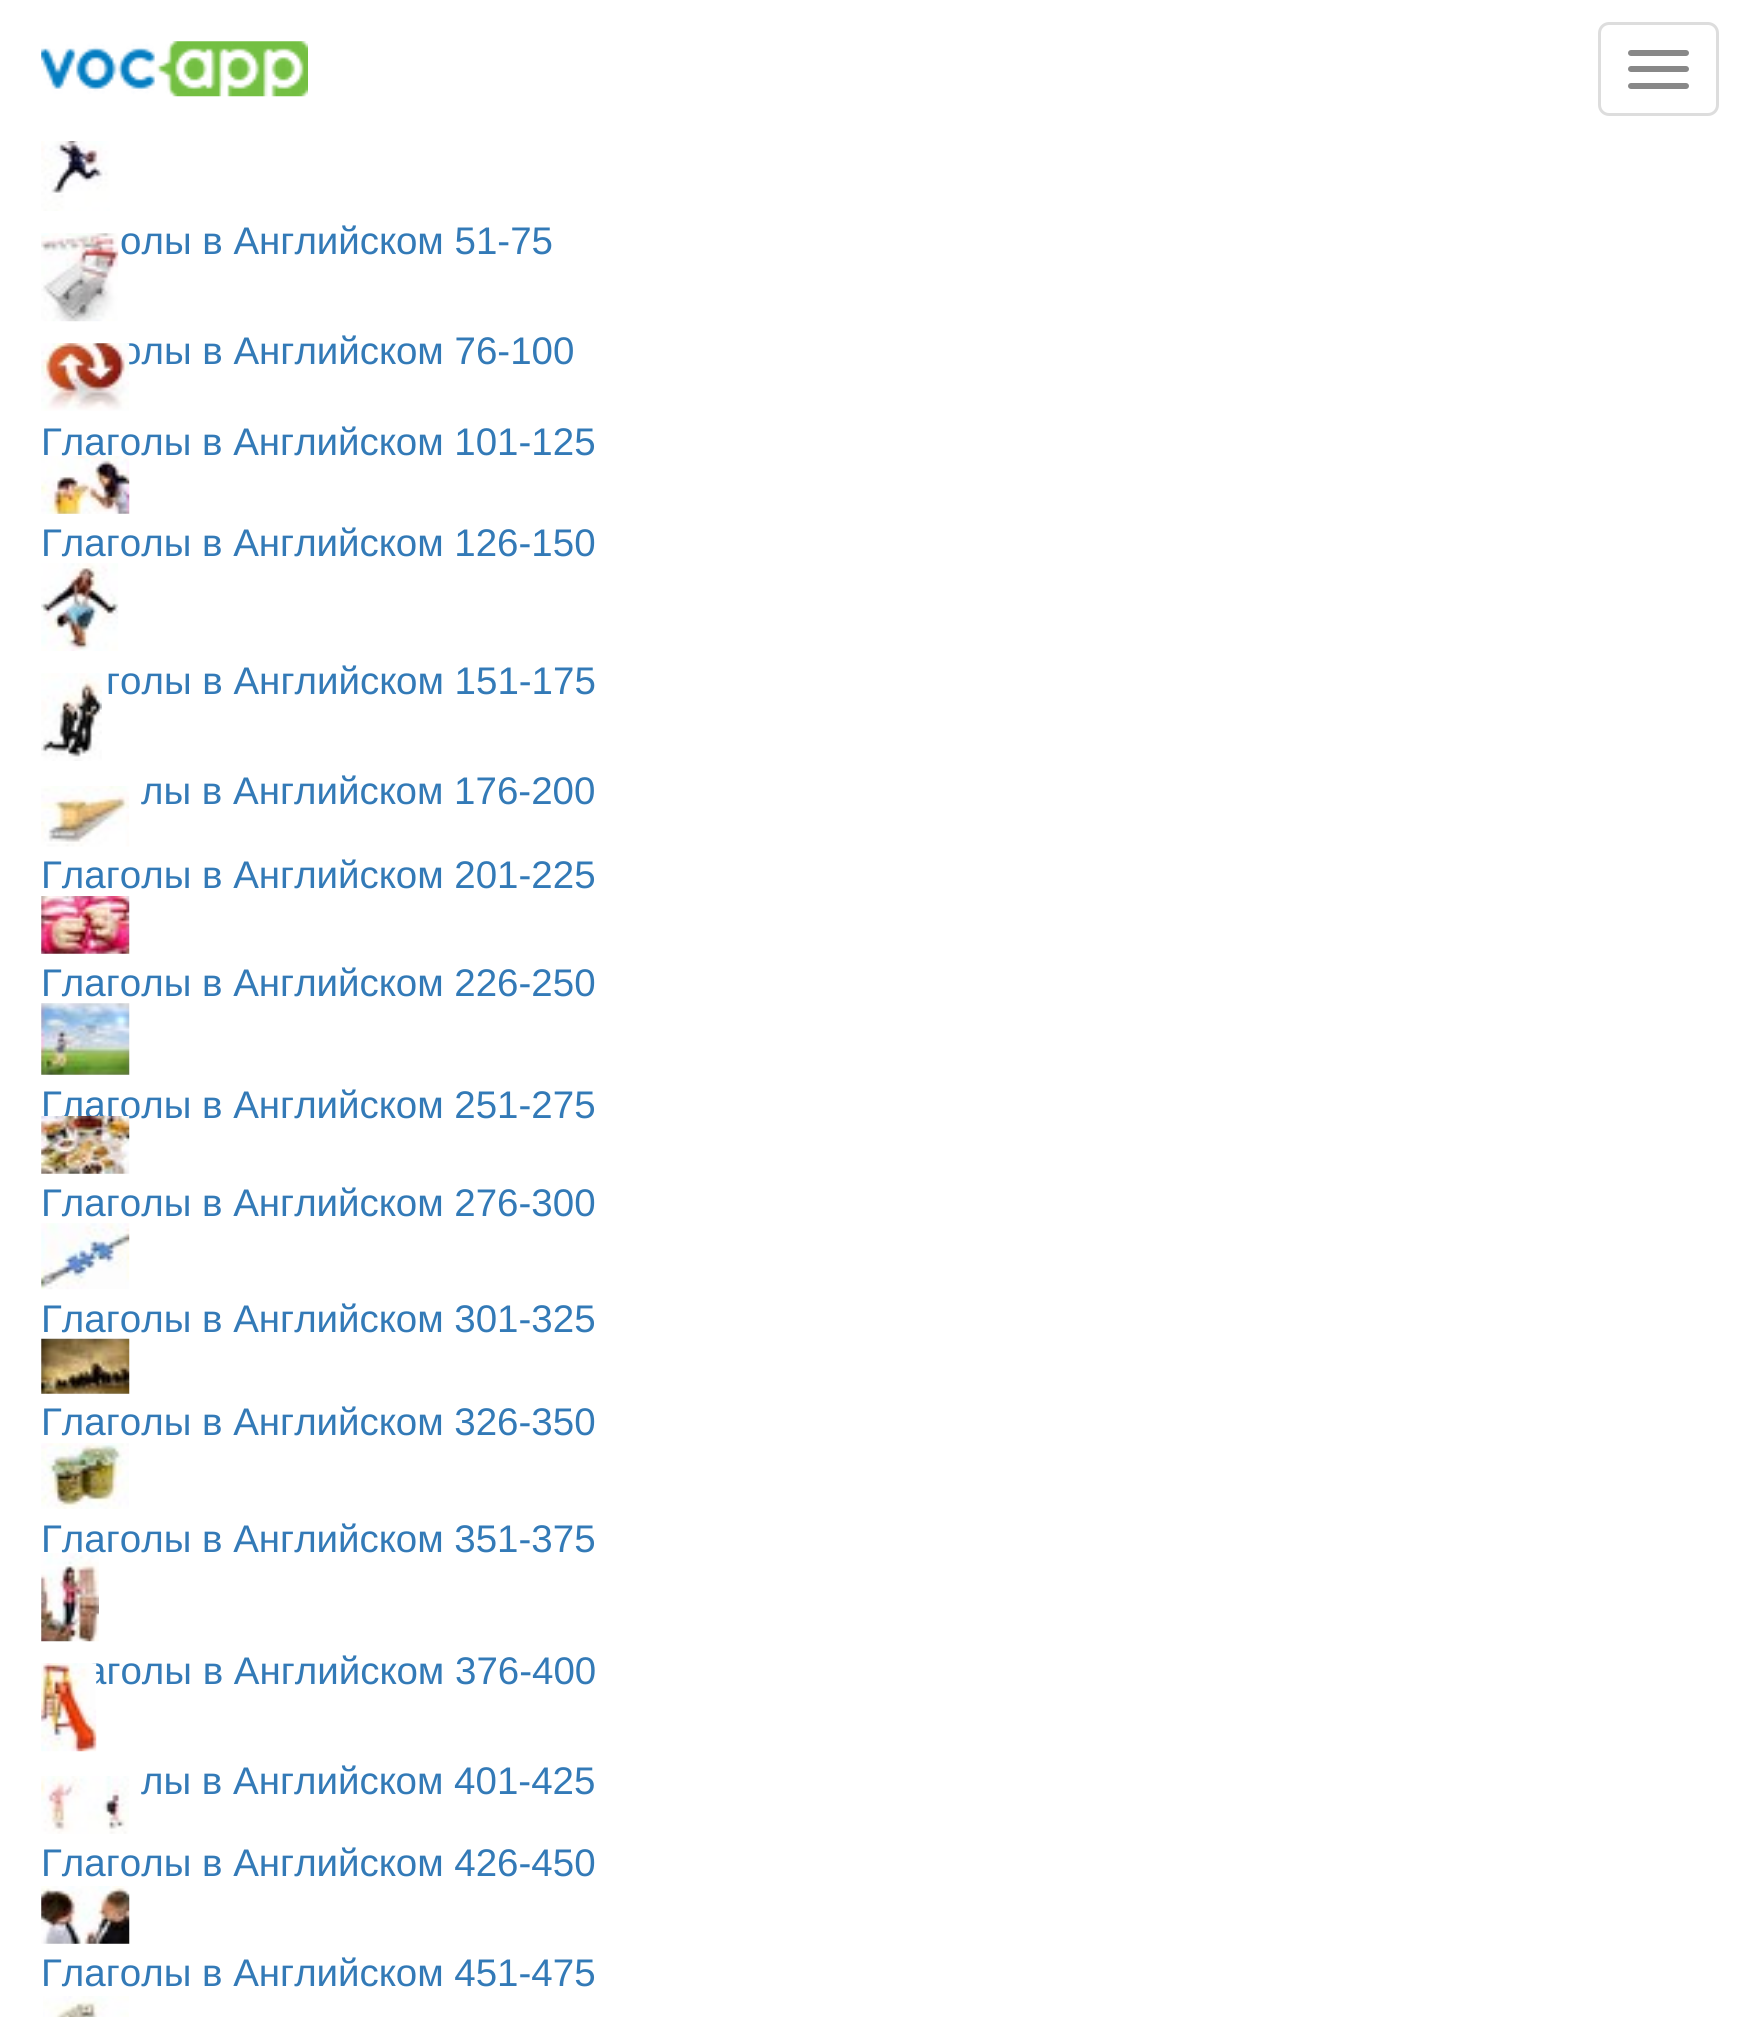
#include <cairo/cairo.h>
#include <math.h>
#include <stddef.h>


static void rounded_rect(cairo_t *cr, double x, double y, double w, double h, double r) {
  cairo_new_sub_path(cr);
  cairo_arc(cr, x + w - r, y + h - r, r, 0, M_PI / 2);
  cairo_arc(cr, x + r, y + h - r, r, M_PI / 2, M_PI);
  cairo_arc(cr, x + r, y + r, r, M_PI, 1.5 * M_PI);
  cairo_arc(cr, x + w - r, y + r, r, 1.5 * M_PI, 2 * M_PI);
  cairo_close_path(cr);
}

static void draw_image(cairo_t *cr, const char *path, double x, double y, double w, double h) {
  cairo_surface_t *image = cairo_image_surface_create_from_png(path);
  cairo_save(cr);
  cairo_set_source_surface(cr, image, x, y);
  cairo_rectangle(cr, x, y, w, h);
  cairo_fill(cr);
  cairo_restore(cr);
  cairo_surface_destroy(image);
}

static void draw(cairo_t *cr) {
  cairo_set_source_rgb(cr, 1, 1, 1);
  cairo_paint(cr);
  draw_image(cr, "images/1.png", 41, 41, 267, 56);
  rounded_rect(cr, 1599.5, 23.5, 118, 91, 9.5);
  cairo_set_source_rgb(cr, 221 / 255.0, 221 / 255.0, 221 / 255.0);
  cairo_set_line_width(cr, 3);
  cairo_stroke(cr);
  cairo_set_source_rgb(cr, 136 / 255.0, 136 / 255.0, 136 / 255.0);
  rounded_rect(cr, 1628, 50, 61, 6, 3);
  cairo_fill(cr);
  rounded_rect(cr, 1628, 66, 61, 6, 3);
  cairo_fill(cr);
  rounded_rect(cr, 1628, 83, 61, 6, 3);
  cairo_fill(cr);
  draw_image(cr, "images/2.png", 41, 141, 69, 70);
  draw_image(cr, "images/3.png", 41, 233, 78, 89);
  draw_image(cr, "images/5.png", 41, 456, 89, 58);
  draw_image(cr, "images/6.png", 41, 563, 78, 88);
  draw_image(cr, "images/7.png", 41, 673, 61, 88);
  draw_image(cr, "images/8.png", 41, 786, 89, 61);
  draw_image(cr, "images/9.png", 41, 896, 89, 58);
  draw_image(cr, "images/10.png", 41, 1003, 89, 72);
  draw_image(cr, "images/12.png", 41, 1223, 89, 67);
  draw_image(cr, "images/13.png", 41, 1338, 89, 56);
  draw_image(cr, "images/14.png", 41, 1443, 88, 66);
  draw_image(cr, "images/15.png", 41, 1553, 58, 89);
  draw_image(cr, "images/17.png", 41, 1776, 89, 58);
  draw_image(cr, "images/18.png", 41, 1886, 89, 58);
  draw_image(cr, "images/19.png", 43, 1996, 86, 21);
  cairo_select_font_face(cr, "Liberation Sans", CAIRO_FONT_SLANT_NORMAL, CAIRO_FONT_WEIGHT_NORMAL);
  cairo_set_font_size(cr, 38.5);
  cairo_set_source_rgb(cr, 51 / 255.0, 122 / 255.0, 183 / 255.0);
  cairo_move_to(cr, 120, 254);
  cairo_show_text(cr, "олы в Английском 51-75");
  cairo_move_to(cr, 120, 364);
  cairo_show_text(cr, "олы в Английском 76-100");
  draw_image(cr, "images/4.png", 41, 343, 89, 68);
  cairo_move_to(cr, 41, 455);
  cairo_show_text(cr, "Глаголы в Английском 101-125");
  cairo_move_to(cr, 41, 556);
  cairo_show_text(cr, "Глаголы в Английском 126-150");
  cairo_move_to(cr, 106, 694);
  cairo_show_text(cr, "голы в Английском 151-175");
  cairo_move_to(cr, 141, 804);
  cairo_show_text(cr, "лы в Английском 176-200");
  cairo_move_to(cr, 41, 888);
  cairo_show_text(cr, "Глаголы в Английском 201-225");
  cairo_move_to(cr, 41, 996);
  cairo_show_text(cr, "Глаголы в Английском 226-250");
  cairo_move_to(cr, 41, 1118);
  cairo_show_text(cr, "Глаголы в Английском 251-275");
  draw_image(cr, "images/11.png", 41, 1116, 89, 58);
  cairo_move_to(cr, 41, 1216);
  cairo_show_text(cr, "Глаголы в Английском 276-300");
  cairo_move_to(cr, 41, 1332);
  cairo_show_text(cr, "Глаголы в Английском 301-325");
  cairo_move_to(cr, 41, 1435);
  cairo_show_text(cr, "Глаголы в Английском 326-350");
  cairo_move_to(cr, 41, 1552);
  cairo_show_text(cr, "Глаголы в Английском 351-375");
  cairo_move_to(cr, 85, 1684);
  cairo_show_text(cr, "аголы в Английском 376-400");
  draw_image(cr, "images/16.png", 41, 1663, 56, 89);
  cairo_move_to(cr, 141, 1794);
  cairo_show_text(cr, "лы в Английском 401-425");
  cairo_move_to(cr, 41, 1876);
  cairo_show_text(cr, "Глаголы в Английском 426-450");
  cairo_move_to(cr, 41, 1986);
  cairo_show_text(cr, "Глаголы в Английском 451-475");
}

int main(void) {
  cairo_surface_t *surface = cairo_image_surface_create(CAIRO_FORMAT_RGB24, 1758, 2017);
  cairo_t *cr = cairo_create(surface);
  cairo_font_options_t *options = cairo_font_options_create();
  cairo_font_options_set_hint_metrics(options, CAIRO_HINT_METRICS_OFF);
  cairo_font_options_set_hint_style(options, CAIRO_HINT_STYLE_NONE);
  cairo_set_font_options(cr, options);
  cairo_set_miter_limit(cr, 4);
  draw(cr);
  cairo_surface_write_to_png(surface, "out.png");
  cairo_font_options_destroy(options);
  cairo_destroy(cr);
  cairo_surface_destroy(surface);
  return 0;
}
